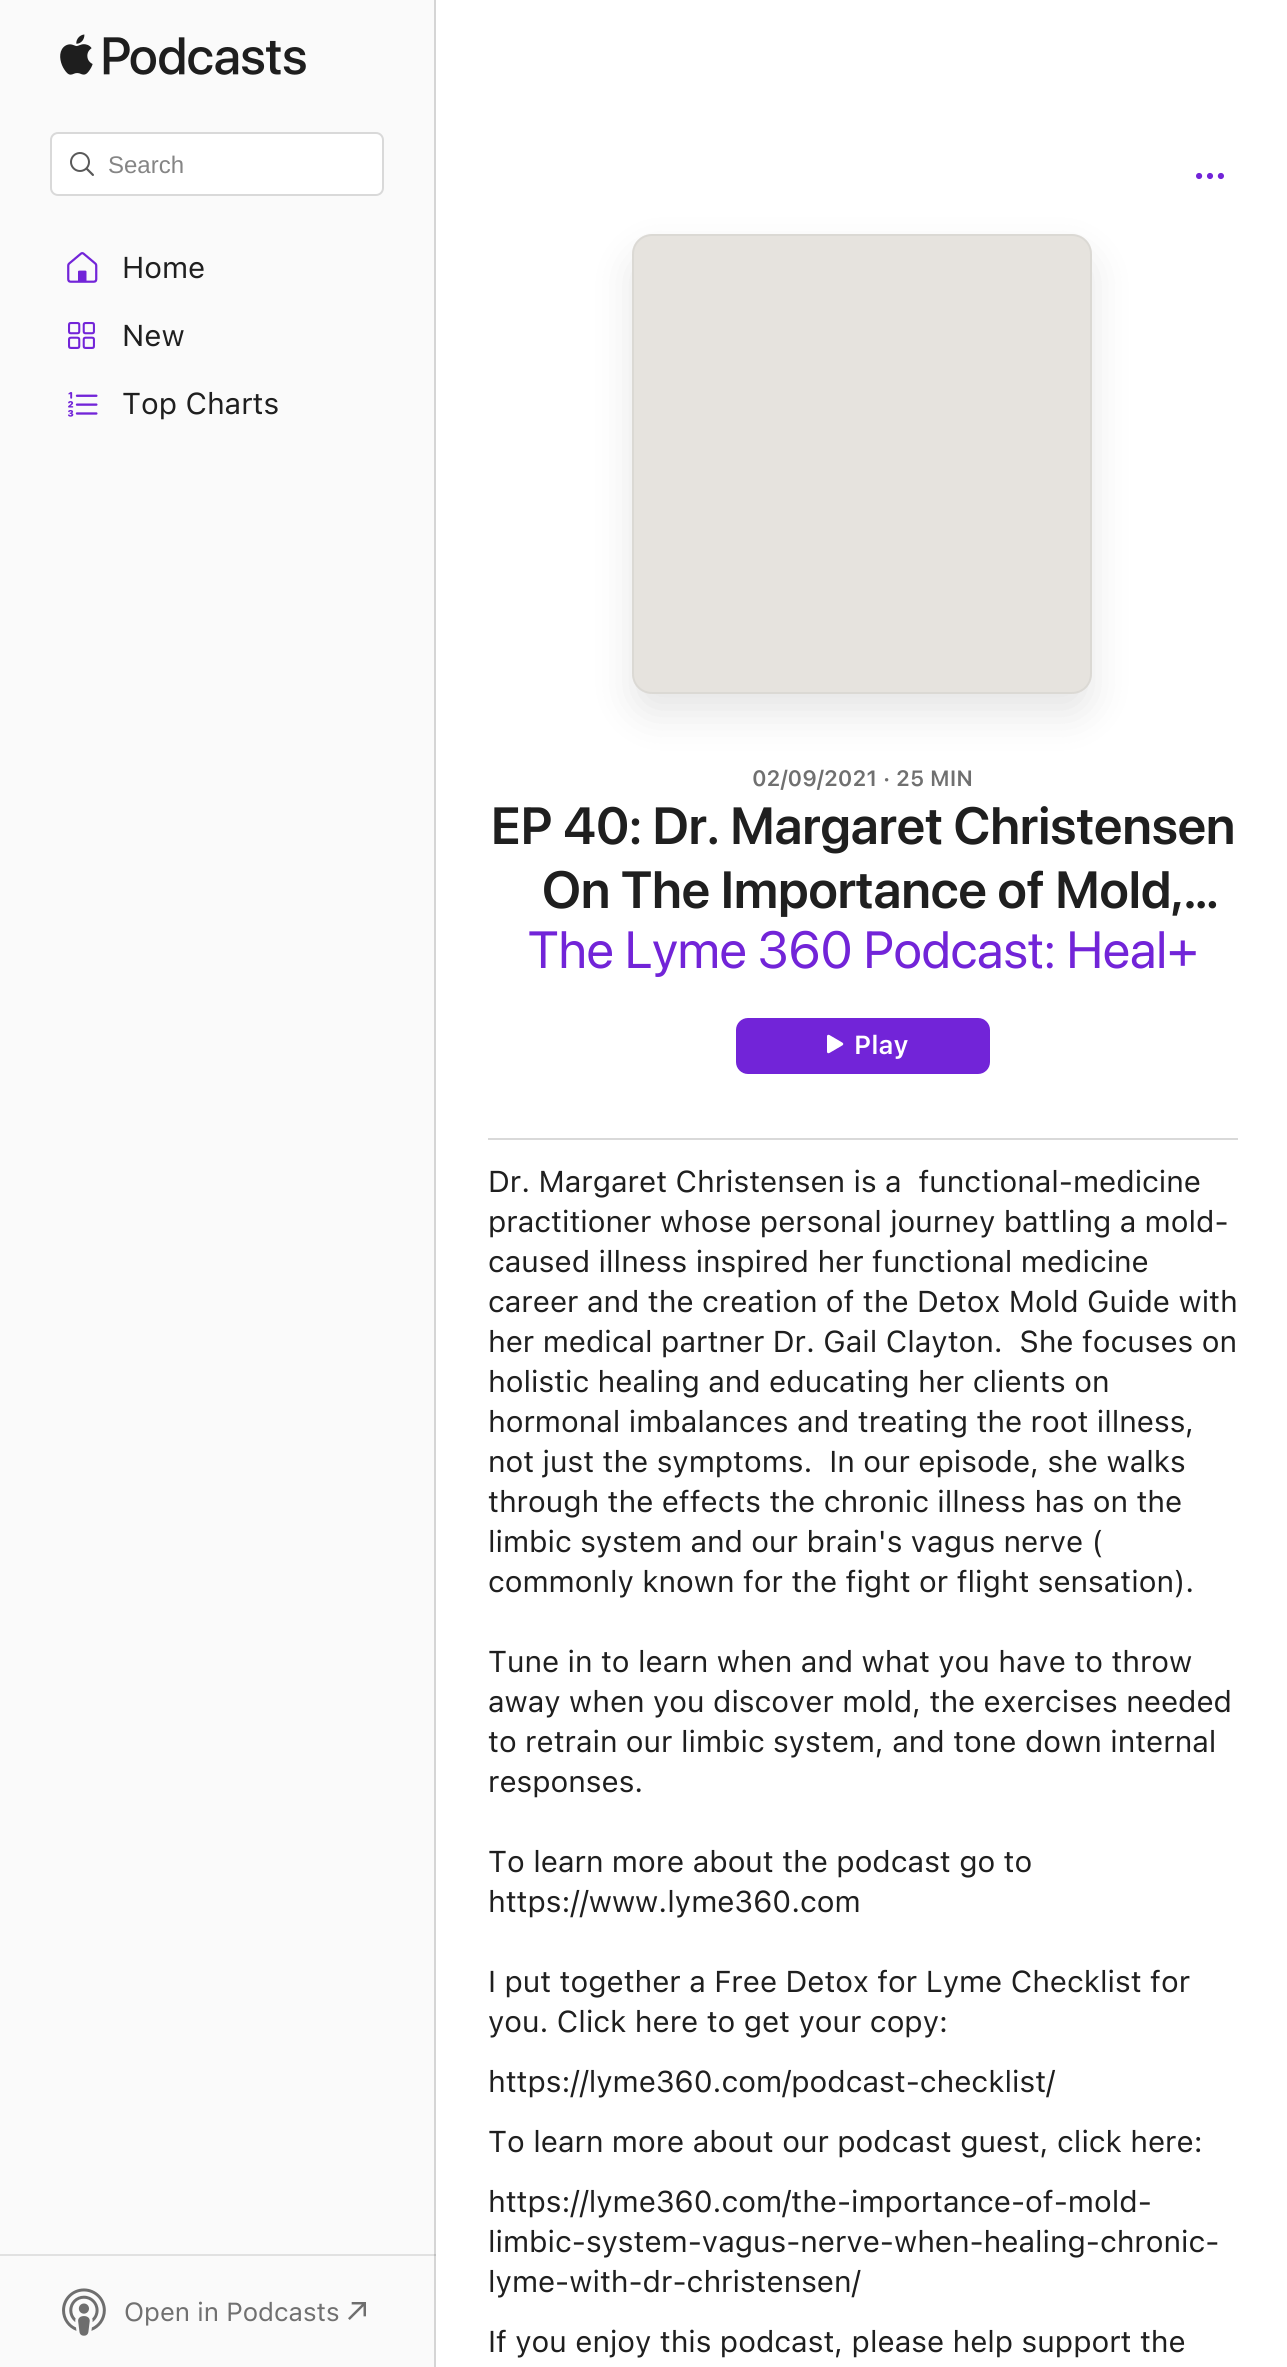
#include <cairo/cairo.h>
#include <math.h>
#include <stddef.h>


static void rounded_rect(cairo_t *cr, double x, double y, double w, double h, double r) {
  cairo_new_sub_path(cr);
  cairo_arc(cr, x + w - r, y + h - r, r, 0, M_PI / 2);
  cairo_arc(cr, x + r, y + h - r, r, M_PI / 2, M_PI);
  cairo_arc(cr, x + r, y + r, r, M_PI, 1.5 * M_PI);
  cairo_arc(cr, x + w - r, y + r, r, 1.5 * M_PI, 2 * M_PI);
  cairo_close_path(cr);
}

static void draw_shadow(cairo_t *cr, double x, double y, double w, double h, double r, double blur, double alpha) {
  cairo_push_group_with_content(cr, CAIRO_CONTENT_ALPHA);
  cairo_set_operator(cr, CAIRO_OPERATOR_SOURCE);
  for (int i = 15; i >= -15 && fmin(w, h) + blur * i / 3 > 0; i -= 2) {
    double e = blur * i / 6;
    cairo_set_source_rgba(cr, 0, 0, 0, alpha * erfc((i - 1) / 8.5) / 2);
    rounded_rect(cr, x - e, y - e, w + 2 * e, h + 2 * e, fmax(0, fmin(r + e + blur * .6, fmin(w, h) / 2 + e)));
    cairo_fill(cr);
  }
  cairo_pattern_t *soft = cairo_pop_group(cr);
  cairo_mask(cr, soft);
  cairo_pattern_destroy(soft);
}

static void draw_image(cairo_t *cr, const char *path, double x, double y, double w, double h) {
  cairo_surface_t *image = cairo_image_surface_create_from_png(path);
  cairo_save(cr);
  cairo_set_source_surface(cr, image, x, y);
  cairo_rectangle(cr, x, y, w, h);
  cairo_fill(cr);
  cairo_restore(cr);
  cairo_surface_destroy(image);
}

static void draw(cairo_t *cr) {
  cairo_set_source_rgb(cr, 1, 1, 1);
  cairo_paint(cr);
  cairo_set_source_rgb(cr, 250 / 255.0, 250 / 255.0, 250 / 255.0);
  cairo_rectangle(cr, 0, 0, 434, 2367);
  cairo_fill(cr);
  cairo_set_source_rgb(cr, 225 / 255.0, 225 / 255.0, 225 / 255.0);
  cairo_rectangle(cr, 0, 2254, 436, 2);
  cairo_fill(cr);
  cairo_set_source_rgb(cr, 213 / 255.0, 213 / 255.0, 213 / 255.0);
  cairo_rectangle(cr, 434, 0, 2, 2367);
  cairo_fill(cr);
  cairo_set_source_rgb(cr, 192 / 255.0, 192 / 255.0, 192 / 255.0);
  cairo_rectangle(cr, 434, 2254, 2, 2);
  cairo_fill(cr);
  draw_image(cr, "images/1.png", 60, 34, 246, 41);
  cairo_set_source_rgb(cr, 1, 1, 1);
  rounded_rect(cr, 51, 133, 332, 62, 7);
  cairo_fill_preserve(cr);
  cairo_set_source_rgb(cr, 217 / 255.0, 217 / 255.0, 217 / 255.0);
  cairo_stroke(cr);
  draw_image(cr, "images/2.png", 70, 152, 24, 24);
  draw_image(cr, "images/3.png", 67, 252, 31, 31);
  draw_image(cr, "images/4.png", 68, 322, 27, 27);
  draw_image(cr, "images/5.png", 68, 392, 30, 25);
  draw_image(cr, "images/6.png", 62, 2288, 44, 48);
  draw_image(cr, "images/7.png", 348, 2302, 18, 18);
  draw_image(cr, "images/8.png", 1196, 172, 28, 8);
  cairo_set_source_rgb(cr, 0, 0, 0);
  draw_shadow(cr, 632, 254, 460, 460, 20, 20, 0.1);
  cairo_set_source_rgb(cr, 230 / 255.0, 227 / 255.0, 222 / 255.0);
  rounded_rect(cr, 632, 234, 460, 460, 20);
  cairo_fill(cr);
  rounded_rect(cr, 633, 235, 458, 458, 19);
  cairo_set_source_rgba(cr, 128 / 255.0, 128 / 255.0, 128 / 255.0, 0.1);
  cairo_stroke(cr);
  cairo_set_source_rgb(cr, 114 / 255.0, 36 / 255.0, 216 / 255.0);
  rounded_rect(cr, 736, 1018, 254, 56, 12);
  cairo_fill(cr);
  draw_image(cr, "images/9.png", 827, 1034, 17, 20);
  cairo_set_source_rgb(cr, 217 / 255.0, 217 / 255.0, 217 / 255.0);
  cairo_rectangle(cr, 488, 1138, 750, 2);
  cairo_fill(cr);
  cairo_select_font_face(cr, "Liberation Sans", CAIRO_FONT_SLANT_NORMAL, CAIRO_FONT_WEIGHT_NORMAL);
  cairo_set_font_size(cr, 24);
  cairo_set_source_rgb(cr, 133 / 255.0, 133 / 255.0, 133 / 255.0);
  cairo_move_to(cr, 108, 173);
  cairo_show_text(cr, "Search");
  cairo_select_font_face(cr, "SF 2", CAIRO_FONT_SLANT_NORMAL, CAIRO_FONT_WEIGHT_NORMAL);
  cairo_set_font_size(cr, 30);
  cairo_set_source_rgb(cr, 31 / 255.0, 31 / 255.0, 31 / 255.0);
  cairo_move_to(cr, 122, 278);
  cairo_show_text(cr, "Home");
  cairo_move_to(cr, 122, 346);
  cairo_show_text(cr, "New");
  cairo_move_to(cr, 122, 414);
  cairo_show_text(cr, "Top Charts");
  cairo_set_font_size(cr, 26);
  cairo_set_source_rgb(cr, 112 / 255.0, 112 / 255.0, 112 / 255.0);
  cairo_move_to(cr, 124, 2321);
  cairo_show_text(cr, "Open in Podcasts");
  cairo_select_font_face(cr, "SF SemiBold", CAIRO_FONT_SLANT_NORMAL, CAIRO_FONT_WEIGHT_NORMAL);
  cairo_set_font_size(cr, 22);
  cairo_move_to(cr, 752, 786);
  cairo_show_text(cr, "02/09/2021 · 25 MIN");
  cairo_select_font_face(cr, "SF 2 SemiBold", CAIRO_FONT_SLANT_NORMAL, CAIRO_FONT_WEIGHT_NORMAL);
  cairo_set_font_size(cr, 52);
  cairo_set_source_rgb(cr, 31 / 255.0, 31 / 255.0, 31 / 255.0);
  cairo_move_to(cr, 491, 844);
  cairo_show_text(cr, "EP 40: Dr. Margaret Christensen");
  cairo_move_to(cr, 542, 908);
  cairo_show_text(cr, "On The Importance of Mold,…");
  cairo_select_font_face(cr, "SF", CAIRO_FONT_SLANT_NORMAL, CAIRO_FONT_WEIGHT_NORMAL);
  cairo_set_source_rgb(cr, 114 / 255.0, 36 / 255.0, 216 / 255.0);
  cairo_move_to(cr, 528, 968);
  cairo_show_text(cr, "The Lyme 360 Podcast: Heal+");
  cairo_select_font_face(cr, "SF SemiBold", CAIRO_FONT_SLANT_NORMAL, CAIRO_FONT_WEIGHT_NORMAL);
  cairo_set_font_size(cr, 26);
  cairo_set_source_rgb(cr, 1, 1, 1);
  cairo_move_to(cr, 854, 1054);
  cairo_show_text(cr, "Play");
  cairo_select_font_face(cr, "SF 2", CAIRO_FONT_SLANT_NORMAL, CAIRO_FONT_WEIGHT_NORMAL);
  cairo_set_font_size(cr, 30);
  cairo_set_source_rgb(cr, 31 / 255.0, 31 / 255.0, 31 / 255.0);
  cairo_move_to(cr, 488, 1192);
  cairo_show_text(cr, "Dr. Margaret Christensen is a  functional-medicine");
  cairo_move_to(cr, 488, 1232);
  cairo_show_text(cr, "practitioner whose personal journey battling a mold-");
  cairo_move_to(cr, 488, 1272);
  cairo_show_text(cr, "caused illness inspired her functional medicine");
  cairo_move_to(cr, 488, 1312);
  cairo_show_text(cr, "career and the creation of the Detox Mold Guide with");
  cairo_move_to(cr, 488, 1352);
  cairo_show_text(cr, "her medical partner Dr. Gail Clayton.  She focuses on");
  cairo_move_to(cr, 488, 1392);
  cairo_show_text(cr, "holistic healing and educating her clients on");
  cairo_move_to(cr, 488, 1432);
  cairo_show_text(cr, "hormonal imbalances and treating the root illness,");
  cairo_move_to(cr, 488, 1472);
  cairo_show_text(cr, "not just the symptoms.  In our episode, she walks");
  cairo_move_to(cr, 488, 1512);
  cairo_show_text(cr, "through the effects the chronic illness has on the");
  cairo_move_to(cr, 488, 1552);
  cairo_show_text(cr, "limbic system and our brain's vagus nerve (");
  cairo_move_to(cr, 488, 1592);
  cairo_show_text(cr, "commonly known for the fight or flight sensation).");
  cairo_move_to(cr, 488, 1672);
  cairo_show_text(cr, "Tune in to learn when and what you have to throw");
  cairo_move_to(cr, 488, 1712);
  cairo_show_text(cr, "away when you discover mold, the exercises needed");
  cairo_move_to(cr, 488, 1752);
  cairo_show_text(cr, "to retrain our limbic system, and tone down internal");
  cairo_move_to(cr, 488, 1792);
  cairo_show_text(cr, "responses.");
  cairo_move_to(cr, 488, 1872);
  cairo_show_text(cr, "To learn more about the podcast go to");
  cairo_move_to(cr, 488, 1912);
  cairo_show_text(cr, "https://www.lyme360.com");
  cairo_move_to(cr, 488, 1992);
  cairo_show_text(cr, "I put together a Free Detox for Lyme Checklist for");
  cairo_move_to(cr, 488, 2032);
  cairo_show_text(cr, "you. Click here to get your copy:");
  cairo_move_to(cr, 488, 2092);
  cairo_show_text(cr, "https://lyme360.com/podcast-checklist/");
  cairo_move_to(cr, 488, 2152);
  cairo_show_text(cr, "To learn more about our podcast guest, click here:");
  cairo_move_to(cr, 488, 2212);
  cairo_show_text(cr, "https://lyme360.com/the-importance-of-mold-");
  cairo_move_to(cr, 488, 2252);
  cairo_show_text(cr, "limbic-system-vagus-nerve-when-healing-chronic-");
  cairo_move_to(cr, 488, 2292);
  cairo_show_text(cr, "lyme-with-dr-christensen/");
  cairo_move_to(cr, 488, 2352);
  cairo_show_text(cr, "If you enjoy this podcast, please help support the");
}

int main(void) {
  cairo_surface_t *surface = cairo_image_surface_create(CAIRO_FORMAT_RGB24, 1287, 2367);
  cairo_t *cr = cairo_create(surface);
  cairo_font_options_t *options = cairo_font_options_create();
  cairo_font_options_set_hint_metrics(options, CAIRO_HINT_METRICS_OFF);
  cairo_font_options_set_hint_style(options, CAIRO_HINT_STYLE_NONE);
  cairo_set_font_options(cr, options);
  cairo_set_miter_limit(cr, 4);
  draw(cr);
  cairo_surface_write_to_png(surface, "out.png");
  cairo_font_options_destroy(options);
  cairo_destroy(cr);
  cairo_surface_destroy(surface);
  return 0;
}
